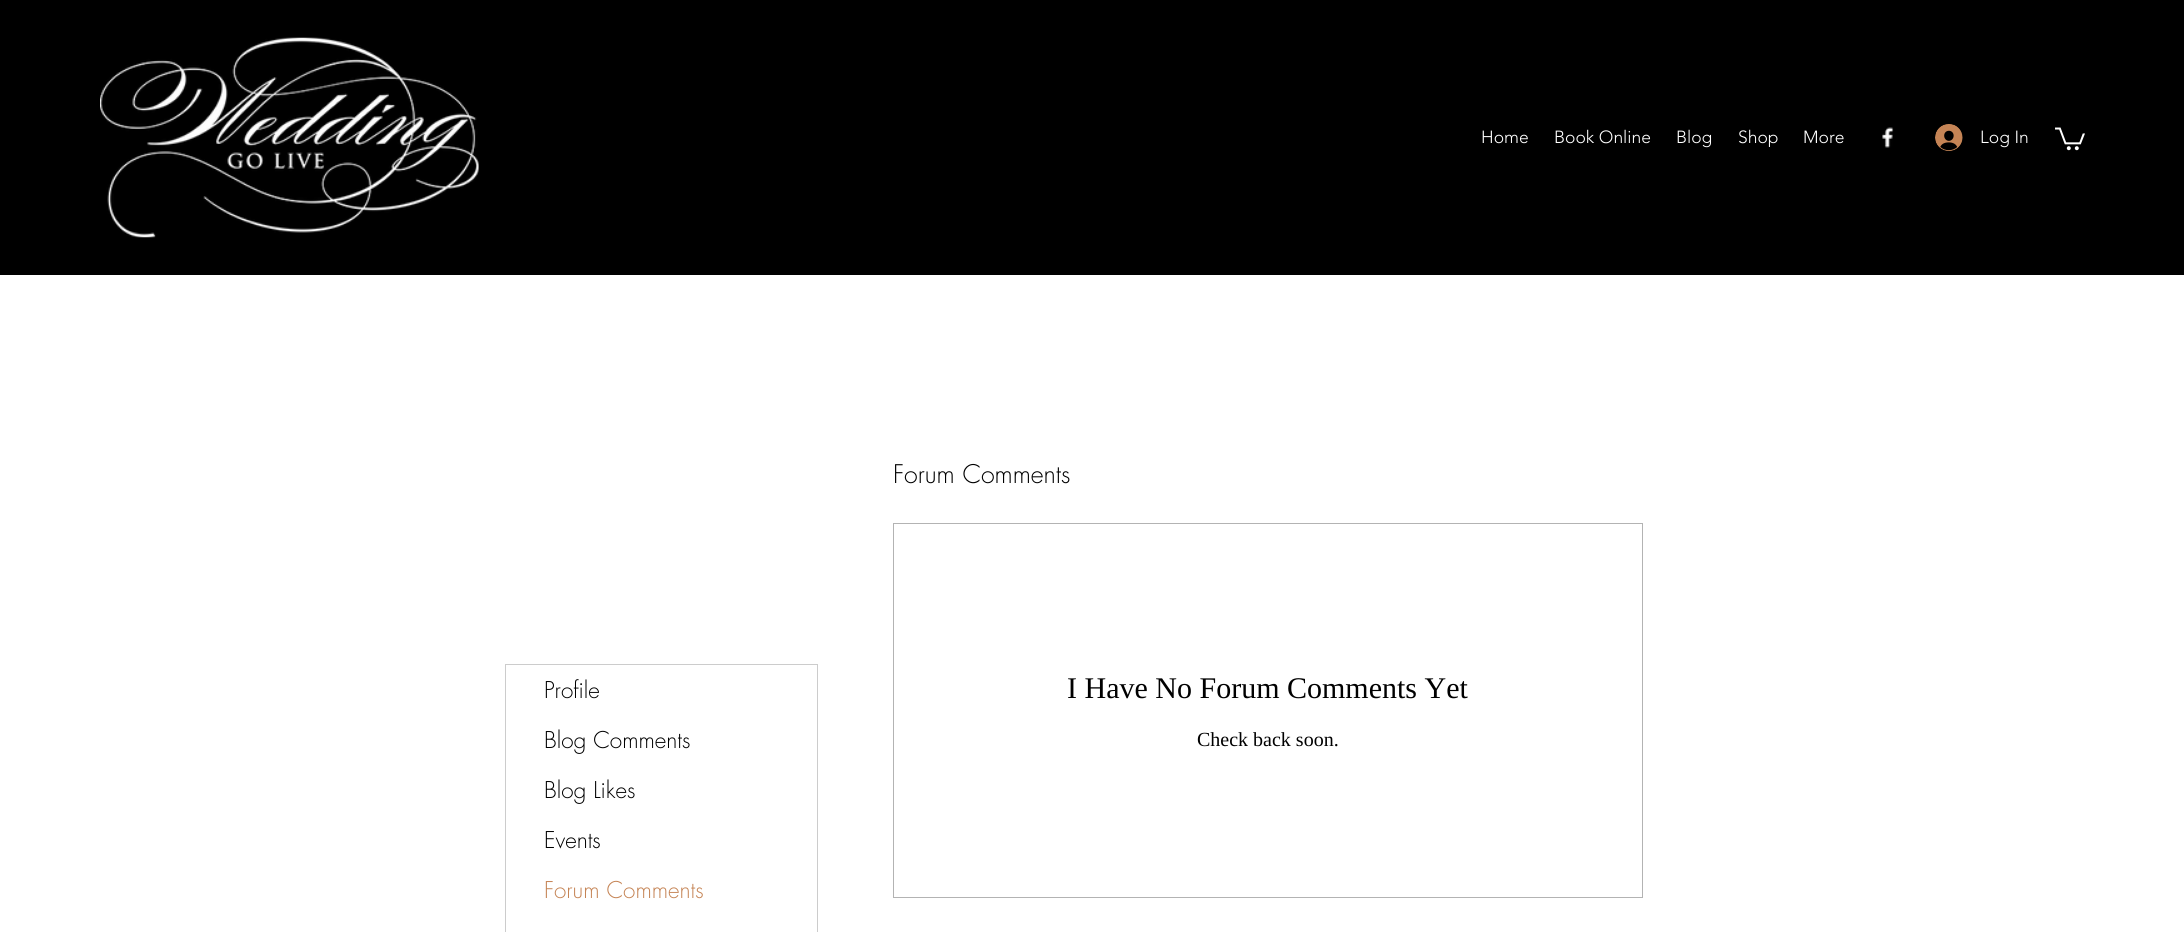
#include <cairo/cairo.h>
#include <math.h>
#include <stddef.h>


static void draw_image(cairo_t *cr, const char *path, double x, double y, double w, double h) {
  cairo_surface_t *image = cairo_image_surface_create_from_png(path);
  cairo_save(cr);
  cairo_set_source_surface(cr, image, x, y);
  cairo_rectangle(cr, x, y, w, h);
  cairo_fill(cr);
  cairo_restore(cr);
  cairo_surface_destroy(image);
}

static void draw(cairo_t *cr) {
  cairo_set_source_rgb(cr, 1, 1, 1);
  cairo_paint(cr);
  cairo_set_source_rgb(cr, 0, 0, 0);
  cairo_rectangle(cr, 0, 0, 2184, 275);
  cairo_fill(cr);
  draw_image(cr, "images/1.png", 100, 37, 379, 201);
  draw_image(cr, "images/2.png", 1882, 127, 12, 21);
  draw_image(cr, "images/3.png", 1935, 124, 28, 27);
  draw_image(cr, "images/4.png", 2055, 127, 30, 24);
  cairo_rectangle(cr, 893.5, 523.5, 749, 374);
  cairo_set_source_rgb(cr, 179 / 255.0, 179 / 255.0, 179 / 255.0);
  cairo_set_line_width(cr, 1);
  cairo_stroke(cr);
  cairo_rectangle(cr, 505.5, 664.5, 312, 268);
  cairo_set_source_rgb(cr, 204 / 255.0, 204 / 255.0, 204 / 255.0);
  cairo_stroke(cr);
  cairo_select_font_face(cr, "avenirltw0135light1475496 Light", CAIRO_FONT_SLANT_NORMAL, CAIRO_FONT_WEIGHT_NORMAL);
  cairo_set_font_size(cr, 17.5);
  cairo_set_source_rgb(cr, 1, 1, 1);
  cairo_move_to(cr, 1481, 143);
  cairo_show_text(cr, "Home");
  cairo_move_to(cr, 1554, 143);
  cairo_show_text(cr, "Book Online");
  cairo_move_to(cr, 1676, 143);
  cairo_show_text(cr, "Blog");
  cairo_move_to(cr, 1738, 143);
  cairo_show_text(cr, "Shop");
  cairo_move_to(cr, 1803, 143);
  cairo_show_text(cr, "More");
  cairo_move_to(cr, 1980, 143);
  cairo_show_text(cr, "Log In");
  cairo_select_font_face(cr, "futura Light", CAIRO_FONT_SLANT_NORMAL, CAIRO_FONT_WEIGHT_NORMAL);
  cairo_set_font_size(cr, 25);
  cairo_set_source_rgb(cr, 0, 0, 0);
  cairo_move_to(cr, 893, 483);
  cairo_show_text(cr, "Forum Comments");
  cairo_select_font_face(cr, "Liberation Serif", CAIRO_FONT_SLANT_NORMAL, CAIRO_FONT_WEIGHT_NORMAL);
  cairo_set_font_size(cr, 30);
  cairo_move_to(cr, 1067, 698);
  cairo_show_text(cr, "I Have No Forum Comments Yet");
  cairo_set_font_size(cr, 20);
  cairo_move_to(cr, 1197, 746);
  cairo_show_text(cr, "Check back soon.");
  cairo_select_font_face(cr, "futura Light", CAIRO_FONT_SLANT_NORMAL, CAIRO_FONT_WEIGHT_NORMAL);
  cairo_set_font_size(cr, 22.5);
  cairo_move_to(cr, 544, 698);
  cairo_show_text(cr, "Profile");
  cairo_move_to(cr, 544, 748);
  cairo_show_text(cr, "Blog Comments");
  cairo_move_to(cr, 544, 798);
  cairo_show_text(cr, "Blog Likes");
  cairo_move_to(cr, 544, 848);
  cairo_show_text(cr, "Events");
  cairo_set_source_rgb(cr, 197 / 255.0, 132 / 255.0, 85 / 255.0);
  cairo_move_to(cr, 544, 898);
  cairo_show_text(cr, "Forum Comments");
}

int main(void) {
  cairo_surface_t *surface = cairo_image_surface_create(CAIRO_FORMAT_RGB24, 2184, 932);
  cairo_t *cr = cairo_create(surface);
  cairo_font_options_t *options = cairo_font_options_create();
  cairo_font_options_set_hint_metrics(options, CAIRO_HINT_METRICS_OFF);
  cairo_font_options_set_hint_style(options, CAIRO_HINT_STYLE_NONE);
  cairo_set_font_options(cr, options);
  cairo_set_miter_limit(cr, 4);
  draw(cr);
  cairo_surface_write_to_png(surface, "out.png");
  cairo_font_options_destroy(options);
  cairo_destroy(cr);
  cairo_surface_destroy(surface);
  return 0;
}
